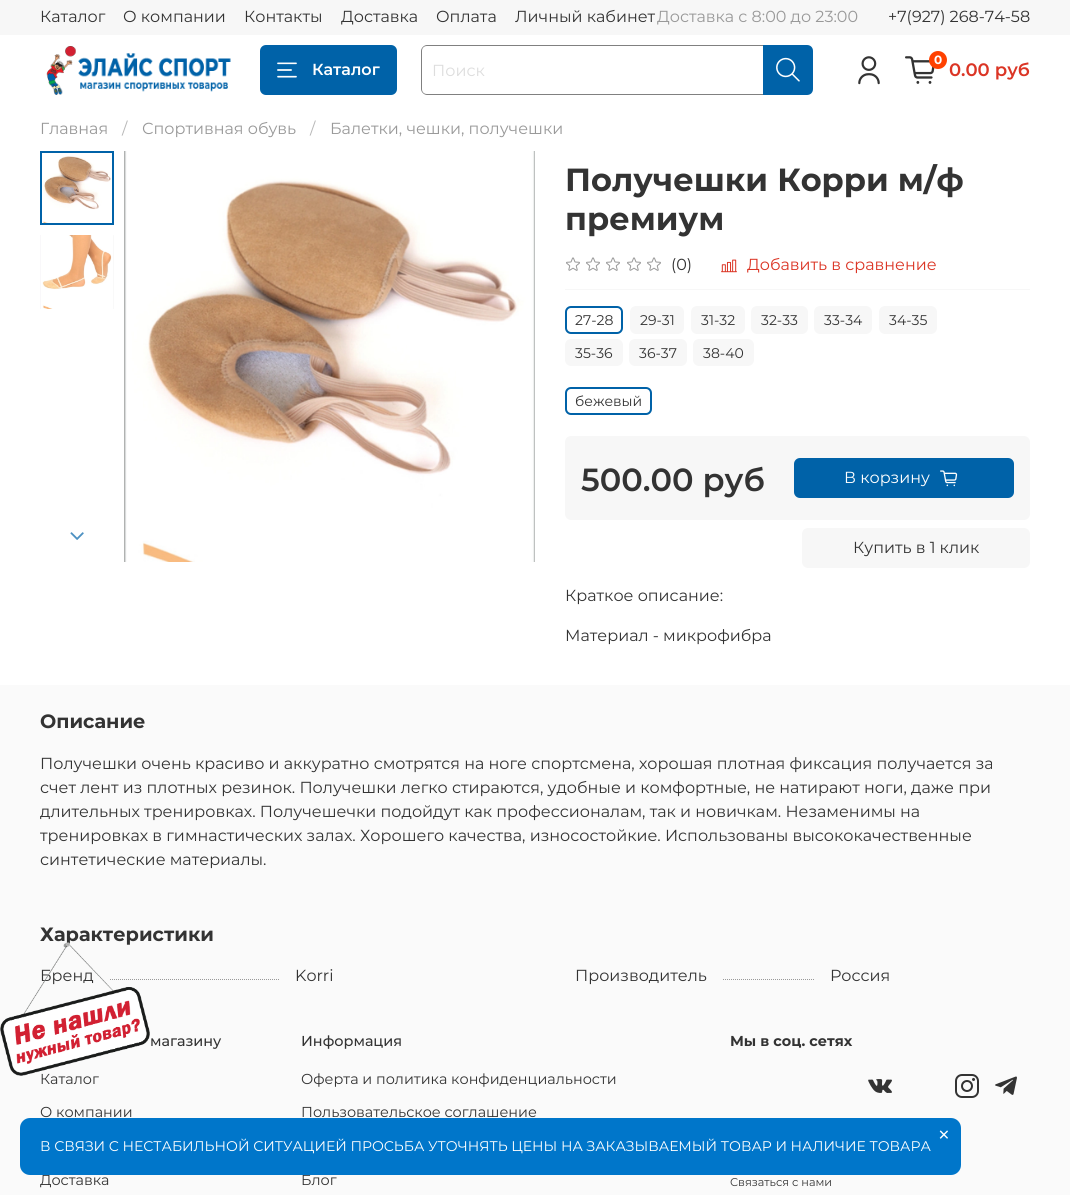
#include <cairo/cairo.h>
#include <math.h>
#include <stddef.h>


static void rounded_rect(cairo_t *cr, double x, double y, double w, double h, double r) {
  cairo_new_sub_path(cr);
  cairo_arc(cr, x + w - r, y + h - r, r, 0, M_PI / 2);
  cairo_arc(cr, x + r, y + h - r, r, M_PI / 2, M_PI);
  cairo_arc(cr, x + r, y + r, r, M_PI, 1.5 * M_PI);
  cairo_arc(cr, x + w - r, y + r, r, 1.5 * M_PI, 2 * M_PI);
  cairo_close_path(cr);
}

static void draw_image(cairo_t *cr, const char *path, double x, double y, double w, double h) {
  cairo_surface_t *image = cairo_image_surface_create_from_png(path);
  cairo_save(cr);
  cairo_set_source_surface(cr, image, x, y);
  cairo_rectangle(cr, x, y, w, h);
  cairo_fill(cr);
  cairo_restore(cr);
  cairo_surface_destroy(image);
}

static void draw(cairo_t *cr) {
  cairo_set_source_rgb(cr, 1, 1, 1);
  cairo_paint(cr);
  cairo_set_source_rgb(cr, 247 / 255.0, 247 / 255.0, 247 / 255.0);
  cairo_rectangle(cr, 0, 0, 1070, 35);
  cairo_fill(cr);
  draw_image(cr, "images/1.png", 46, 46, 185, 49);
  cairo_set_source_rgb(cr, 0, 98 / 255.0, 168 / 255.0);
  rounded_rect(cr, 260, 45, 137, 50, 6);
  cairo_fill(cr);
  draw_image(cr, "images/2.png", 277, 62, 20, 16);
  cairo_set_source_rgb(cr, 128 / 255.0, 128 / 255.0, 128 / 255.0);
  cairo_set_fill_rule(cr, CAIRO_FILL_RULE_EVEN_ODD);
  cairo_new_path(cr);
  cairo_move_to(cr, 427, 45);
  cairo_line_to(cr, 763, 45);
  cairo_line_to(cr, 763, 95);
  cairo_line_to(cr, 427, 95);
  cairo_curve_to(cr, 424, 95, 421, 92, 421, 89);
  cairo_line_to(cr, 421, 51);
  cairo_curve_to(cr, 421, 48, 424, 45, 427, 45);
  cairo_close_path(cr);
  cairo_move_to(cr, 427, 46);
  cairo_line_to(cr, 763, 46);
  cairo_line_to(cr, 763, 94);
  cairo_line_to(cr, 427, 94);
  cairo_curve_to(cr, 424, 94, 422, 92, 422, 89);
  cairo_line_to(cr, 422, 51);
  cairo_curve_to(cr, 422, 48, 424, 46, 427, 46);
  cairo_close_path(cr);
  cairo_fill(cr);
  cairo_set_source_rgb(cr, 0, 98 / 255.0, 168 / 255.0);
  cairo_new_path(cr);
  cairo_move_to(cr, 763, 45);
  cairo_line_to(cr, 807, 45);
  cairo_curve_to(cr, 810.5, 45, 813, 47.5, 813, 51);
  cairo_line_to(cr, 813, 89);
  cairo_curve_to(cr, 813, 92.5, 810.5, 95, 807, 95);
  cairo_line_to(cr, 763, 95);
  cairo_close_path(cr);
  cairo_fill(cr);
  draw_image(cr, "images/3.png", 776, 57, 24, 25);
  draw_image(cr, "images/4.png", 858, 56, 22, 29);
  draw_image(cr, "images/5.png", 905, 56, 30, 28);
  cairo_set_source_rgb(cr, 1, 65 / 255.0, 0);
  cairo_arc(cr, 938, 60, 9, 0, 2 * M_PI);
  cairo_fill(cr);
  draw_image(cr, "images/6.png", 42, 153, 70, 70);
  cairo_rectangle(cr, 41, 152, 72, 72);
  cairo_set_source_rgb(cr, 0, 98 / 255.0, 168 / 255.0);
  cairo_stroke(cr);
  draw_image(cr, "images/7.png", 40, 235, 74, 74);
  draw_image(cr, "images/8.png", 70, 532, 14, 8);
  draw_image(cr, "images/9.png", 124, 151, 411, 411);
  cairo_set_source_rgb(cr, 247 / 255.0, 247 / 255.0, 247 / 255.0);
  cairo_rectangle(cr, 565, 289, 465, 1);
  cairo_fill(cr);
  draw_image(cr, "images/10.png", 566, 257, 14, 14);
  draw_image(cr, "images/10.png", 586, 257, 14, 14);
  draw_image(cr, "images/10.png", 606, 257, 14, 14);
  draw_image(cr, "images/10.png", 627, 257, 14, 14);
  draw_image(cr, "images/10.png", 647, 257, 14, 14);
  draw_image(cr, "images/11.png", 721, 259, 16, 14);
  rounded_rect(cr, 566, 307, 56, 26, 5);
  cairo_set_source_rgb(cr, 0, 98 / 255.0, 168 / 255.0);
  cairo_stroke(cr);
  cairo_set_source_rgb(cr, 247 / 255.0, 247 / 255.0, 247 / 255.0);
  rounded_rect(cr, 630, 306, 54, 28, 6);
  cairo_fill(cr);
  rounded_rect(cr, 691, 306, 54, 28, 6);
  cairo_fill(cr);
  rounded_rect(cr, 751, 306, 57, 28, 6);
  cairo_fill(cr);
  rounded_rect(cr, 814, 306, 58, 28, 6);
  cairo_fill(cr);
  rounded_rect(cr, 879, 306, 58, 28, 6);
  cairo_fill(cr);
  rounded_rect(cr, 565, 339, 58, 27, 6);
  cairo_fill(cr);
  rounded_rect(cr, 629, 339, 58, 27, 6);
  cairo_fill(cr);
  rounded_rect(cr, 693, 339, 61, 27, 6);
  cairo_fill(cr);
  rounded_rect(cr, 566, 388, 85, 26, 5);
  cairo_set_source_rgb(cr, 0, 98 / 255.0, 168 / 255.0);
  cairo_stroke(cr);
  cairo_set_source_rgb(cr, 247 / 255.0, 247 / 255.0, 247 / 255.0);
  rounded_rect(cr, 565, 436, 465, 84, 6);
  cairo_fill(cr);
  cairo_set_source_rgb(cr, 0, 98 / 255.0, 168 / 255.0);
  rounded_rect(cr, 794, 458, 220, 40, 6);
  cairo_fill(cr);
  draw_image(cr, "images/12.png", 940, 470, 18, 17);
  cairo_set_source_rgb(cr, 247 / 255.0, 247 / 255.0, 247 / 255.0);
  rounded_rect(cr, 802, 528, 228, 40, 6);
  cairo_fill(cr);
  cairo_set_source_rgb(cr, 250 / 255.0, 250 / 255.0, 250 / 255.0);
  cairo_rectangle(cr, 0, 685, 1070, 510);
  cairo_fill(cr);
  cairo_new_path(cr);
  cairo_move_to(cr, 110, 979.5);
  cairo_line_to(cr, 279, 979.5);
  cairo_set_source_rgb(cr, 153 / 255.0, 153 / 255.0, 153 / 255.0);
  cairo_set_line_width(cr, 1);
  cairo_set_dash(cr, (double[]){1, 1}, 2, 0);
  cairo_stroke(cr);
  cairo_new_path(cr);
  cairo_move_to(cr, 723, 979.5);
  cairo_line_to(cr, 814, 979.5);
  cairo_stroke(cr);
  draw_image(cr, "images/13.png", 868, 1079, 24, 14);
  draw_image(cr, "images/14.png", 955, 1074, 24, 24);
  draw_image(cr, "images/15.png", 995, 1076, 22, 19);
  cairo_select_font_face(cr, "Montserrat", CAIRO_FONT_SLANT_NORMAL, CAIRO_FONT_WEIGHT_NORMAL);
  cairo_set_font_size(cr, 16);
  cairo_set_source_rgb(cr, 51 / 255.0, 51 / 255.0, 51 / 255.0);
  cairo_move_to(cr, 40, 22);
  cairo_show_text(cr, "Каталог");
  cairo_move_to(cr, 123, 22);
  cairo_show_text(cr, "О компании");
  cairo_move_to(cr, 244, 22);
  cairo_show_text(cr, "Контакты");
  cairo_move_to(cr, 341, 22);
  cairo_show_text(cr, "Доставка");
  cairo_move_to(cr, 436, 22);
  cairo_show_text(cr, "Оплата");
  cairo_move_to(cr, 515, 22);
  cairo_show_text(cr, "Личный кабинет");
  cairo_set_source_rgb(cr, 153 / 255.0, 153 / 255.0, 153 / 255.0);
  cairo_move_to(cr, 657, 22);
  cairo_show_text(cr, "Доставка с 8:00 до 23:00");
  cairo_set_source_rgb(cr, 51 / 255.0, 51 / 255.0, 51 / 255.0);
  cairo_move_to(cr, 888, 22);
  cairo_show_text(cr, "+7(927) 268-74-58");
  cairo_select_font_face(cr, "Montserrat SemiBold", CAIRO_FONT_SLANT_NORMAL, CAIRO_FONT_WEIGHT_NORMAL);
  cairo_set_source_rgb(cr, 1, 1, 1);
  cairo_move_to(cr, 312, 75);
  cairo_show_text(cr, "Каталог");
  cairo_select_font_face(cr, "Montserrat", CAIRO_FONT_SLANT_NORMAL, CAIRO_FONT_WEIGHT_NORMAL);
  cairo_set_source_rgb(cr, 221 / 255.0, 221 / 255.0, 221 / 255.0);
  cairo_move_to(cr, 432, 76);
  cairo_show_text(cr, "Поиск");
  cairo_select_font_face(cr, "Montserrat", CAIRO_FONT_SLANT_NORMAL, CAIRO_FONT_WEIGHT_BOLD);
  cairo_set_font_size(cr, 12);
  cairo_set_source_rgb(cr, 1, 1, 1);
  cairo_move_to(cr, 934, 64);
  cairo_show_text(cr, "0");
  cairo_select_font_face(cr, "Montserrat SemiBold", CAIRO_FONT_SLANT_NORMAL, CAIRO_FONT_WEIGHT_NORMAL);
  cairo_set_font_size(cr, 18);
  cairo_set_source_rgb(cr, 219 / 255.0, 53 / 255.0, 37 / 255.0);
  cairo_move_to(cr, 949, 76);
  cairo_show_text(cr, "0.00 руб");
  cairo_select_font_face(cr, "Montserrat", CAIRO_FONT_SLANT_NORMAL, CAIRO_FONT_WEIGHT_NORMAL);
  cairo_set_font_size(cr, 16);
  cairo_set_source_rgb(cr, 153 / 255.0, 153 / 255.0, 153 / 255.0);
  cairo_move_to(cr, 40, 134);
  cairo_show_text(cr, "Главная");
  cairo_set_source_rgb(cr, 184 / 255.0, 184 / 255.0, 184 / 255.0);
  cairo_move_to(cr, 122, 134);
  cairo_show_text(cr, "/");
  cairo_set_source_rgb(cr, 153 / 255.0, 153 / 255.0, 153 / 255.0);
  cairo_move_to(cr, 142, 134);
  cairo_show_text(cr, "Спортивная обувь");
  cairo_set_source_rgb(cr, 184 / 255.0, 184 / 255.0, 184 / 255.0);
  cairo_move_to(cr, 310, 134);
  cairo_show_text(cr, "/");
  cairo_set_source_rgb(cr, 153 / 255.0, 153 / 255.0, 153 / 255.0);
  cairo_move_to(cr, 330, 134);
  cairo_show_text(cr, "Балетки, чешки, получешки");
  cairo_select_font_face(cr, "Montserrat", CAIRO_FONT_SLANT_NORMAL, CAIRO_FONT_WEIGHT_BOLD);
  cairo_set_font_size(cr, 32);
  cairo_set_source_rgb(cr, 51 / 255.0, 51 / 255.0, 51 / 255.0);
  cairo_move_to(cr, 565, 191);
  cairo_show_text(cr, "Получешки Корри м/ф");
  cairo_move_to(cr, 565, 230);
  cairo_show_text(cr, "премиум");
  cairo_select_font_face(cr, "Montserrat", CAIRO_FONT_SLANT_NORMAL, CAIRO_FONT_WEIGHT_NORMAL);
  cairo_set_font_size(cr, 16);
  cairo_move_to(cr, 671, 270);
  cairo_show_text(cr, "(0)");
  cairo_set_source_rgb(cr, 219 / 255.0, 53 / 255.0, 37 / 255.0);
  cairo_move_to(cr, 747, 270);
  cairo_show_text(cr, "Добавить в сравнение");
  cairo_set_font_size(cr, 14);
  cairo_set_source_rgb(cr, 51 / 255.0, 51 / 255.0, 51 / 255.0);
  cairo_move_to(cr, 575, 325);
  cairo_show_text(cr, "27-28");
  cairo_move_to(cr, 640, 325);
  cairo_show_text(cr, "29-31");
  cairo_move_to(cr, 701, 325);
  cairo_show_text(cr, "31-32");
  cairo_move_to(cr, 761, 325);
  cairo_show_text(cr, "32-33");
  cairo_move_to(cr, 824, 325);
  cairo_show_text(cr, "33-34");
  cairo_move_to(cr, 889, 325);
  cairo_show_text(cr, "34-35");
  cairo_move_to(cr, 575, 358);
  cairo_show_text(cr, "35-36");
  cairo_move_to(cr, 639, 358);
  cairo_show_text(cr, "36-37");
  cairo_move_to(cr, 703, 358);
  cairo_show_text(cr, "38-40");
  cairo_move_to(cr, 575, 406);
  cairo_show_text(cr, "бежевый");
  cairo_select_font_face(cr, "Montserrat SemiBold", CAIRO_FONT_SLANT_NORMAL, CAIRO_FONT_WEIGHT_NORMAL);
  cairo_set_font_size(cr, 32);
  cairo_move_to(cr, 581, 491);
  cairo_show_text(cr, "500.00 руб");
  cairo_select_font_face(cr, "Montserrat", CAIRO_FONT_SLANT_NORMAL, CAIRO_FONT_WEIGHT_NORMAL);
  cairo_set_font_size(cr, 16);
  cairo_set_source_rgb(cr, 1, 1, 1);
  cairo_move_to(cr, 844, 483);
  cairo_show_text(cr, "В корзину");
  cairo_set_source_rgb(cr, 51 / 255.0, 51 / 255.0, 51 / 255.0);
  cairo_move_to(cr, 853, 553);
  cairo_show_text(cr, "Купить в 1 клик");
  cairo_move_to(cr, 565, 601);
  cairo_show_text(cr, "Краткое описание:");
  cairo_move_to(cr, 565, 641);
  cairo_show_text(cr, "Материал - микрофибра");
  cairo_select_font_face(cr, "Montserrat", CAIRO_FONT_SLANT_NORMAL, CAIRO_FONT_WEIGHT_BOLD);
  cairo_set_font_size(cr, 19.25);
  cairo_move_to(cr, 40, 728);
  cairo_show_text(cr, "Описание");
  cairo_select_font_face(cr, "Montserrat", CAIRO_FONT_SLANT_NORMAL, CAIRO_FONT_WEIGHT_NORMAL);
  cairo_set_font_size(cr, 16);
  cairo_move_to(cr, 40, 769);
  cairo_show_text(cr, "Получешки очень красиво и аккуратно смотрятся на ноге спортсмена, хорошая плотная фиксация получается за");
  cairo_move_to(cr, 40, 793);
  cairo_show_text(cr, "счет лент из плотных резинок. Получешки легко стираются, удобные и комфортные, не натирают ноги, даже при");
  cairo_move_to(cr, 40, 817);
  cairo_show_text(cr, "длительных тренировках. Получешечки подойдут как профессионалам, так и новичкам. Незаменимы на");
  cairo_move_to(cr, 40, 841);
  cairo_show_text(cr, "тренировках в гимнастических залах. Хорошего качества, износостойкие. Использованы высококачественные");
  cairo_move_to(cr, 40, 865);
  cairo_show_text(cr, "синтетические материалы.");
  cairo_select_font_face(cr, "Montserrat", CAIRO_FONT_SLANT_NORMAL, CAIRO_FONT_WEIGHT_BOLD);
  cairo_set_font_size(cr, 19.25);
  cairo_move_to(cr, 40, 941);
  cairo_show_text(cr, "Характеристики");
  cairo_select_font_face(cr, "Montserrat", CAIRO_FONT_SLANT_NORMAL, CAIRO_FONT_WEIGHT_NORMAL);
  cairo_set_font_size(cr, 16);
  cairo_move_to(cr, 40, 981);
  cairo_show_text(cr, "Бренд");
  cairo_move_to(cr, 295, 981);
  cairo_show_text(cr, "Korri");
  cairo_move_to(cr, 575, 981);
  cairo_show_text(cr, "Производитель");
  cairo_move_to(cr, 830, 981);
  cairo_show_text(cr, "Россия");
  cairo_select_font_face(cr, "Montserrat Medium", CAIRO_FONT_SLANT_NORMAL, CAIRO_FONT_WEIGHT_NORMAL);
  cairo_set_font_size(cr, 14.4);
  cairo_move_to(cr, 150, 1046);
  cairo_show_text(cr, "магазину");
  cairo_select_font_face(cr, "Montserrat", CAIRO_FONT_SLANT_NORMAL, CAIRO_FONT_WEIGHT_NORMAL);
  cairo_move_to(cr, 40, 1084);
  cairo_show_text(cr, "Каталог");
  cairo_move_to(cr, 40, 1117);
  cairo_show_text(cr, "О компании");
  cairo_move_to(cr, 40, 1185);
  cairo_show_text(cr, "Доставка");
  cairo_select_font_face(cr, "Montserrat Medium", CAIRO_FONT_SLANT_NORMAL, CAIRO_FONT_WEIGHT_NORMAL);
  cairo_move_to(cr, 301, 1046);
  cairo_show_text(cr, "Информация");
  cairo_select_font_face(cr, "Montserrat", CAIRO_FONT_SLANT_NORMAL, CAIRO_FONT_WEIGHT_NORMAL);
  cairo_move_to(cr, 301, 1084);
  cairo_show_text(cr, "Оферта и политика конфиденциальности");
  cairo_move_to(cr, 301, 1117);
  cairo_show_text(cr, "Пользовательское соглашение");
  cairo_move_to(cr, 301, 1185);
  cairo_show_text(cr, "Блог");
  cairo_select_font_face(cr, "Montserrat", CAIRO_FONT_SLANT_NORMAL, CAIRO_FONT_WEIGHT_BOLD);
  cairo_move_to(cr, 730, 1046);
  cairo_show_text(cr, "Мы в соц. сетях");
  cairo_select_font_face(cr, "Montserrat", CAIRO_FONT_SLANT_NORMAL, CAIRO_FONT_WEIGHT_NORMAL);
  cairo_set_font_size(cr, 11.25);
  cairo_move_to(cr, 730, 1186);
  cairo_show_text(cr, "Связаться с нами");
  draw_image(cr, "images/16.png", 0, 942, 150, 134);
  cairo_set_source_rgb(cr, 0, 118 / 255.0, 202 / 255.0);
  rounded_rect(cr, 20, 1118, 941, 57, 10);
  cairo_fill(cr);
  cairo_set_font_size(cr, 24);
  cairo_set_source_rgb(cr, 1, 1, 1);
  cairo_move_to(cr, 937, 1143);
  cairo_show_text(cr, "×");
  cairo_set_font_size(cr, 14);
  cairo_move_to(cr, 40, 1151);
  cairo_show_text(cr, "В СВЯЗИ С НЕСТАБИЛЬНОЙ СИТУАЦИЕЙ ПРОСЬБА УТОЧНЯТЬ ЦЕНЫ НА ЗАКАЗЫВАЕМЫЙ ТОВАР И НАЛИЧИЕ ТОВАРА");
}

int main(void) {
  cairo_surface_t *surface = cairo_image_surface_create(CAIRO_FORMAT_RGB24, 1070, 1195);
  cairo_t *cr = cairo_create(surface);
  cairo_font_options_t *options = cairo_font_options_create();
  cairo_font_options_set_hint_metrics(options, CAIRO_HINT_METRICS_OFF);
  cairo_font_options_set_hint_style(options, CAIRO_HINT_STYLE_NONE);
  cairo_set_font_options(cr, options);
  cairo_set_miter_limit(cr, 4);
  draw(cr);
  cairo_surface_write_to_png(surface, "out.png");
  cairo_font_options_destroy(options);
  cairo_destroy(cr);
  cairo_surface_destroy(surface);
  return 0;
}
